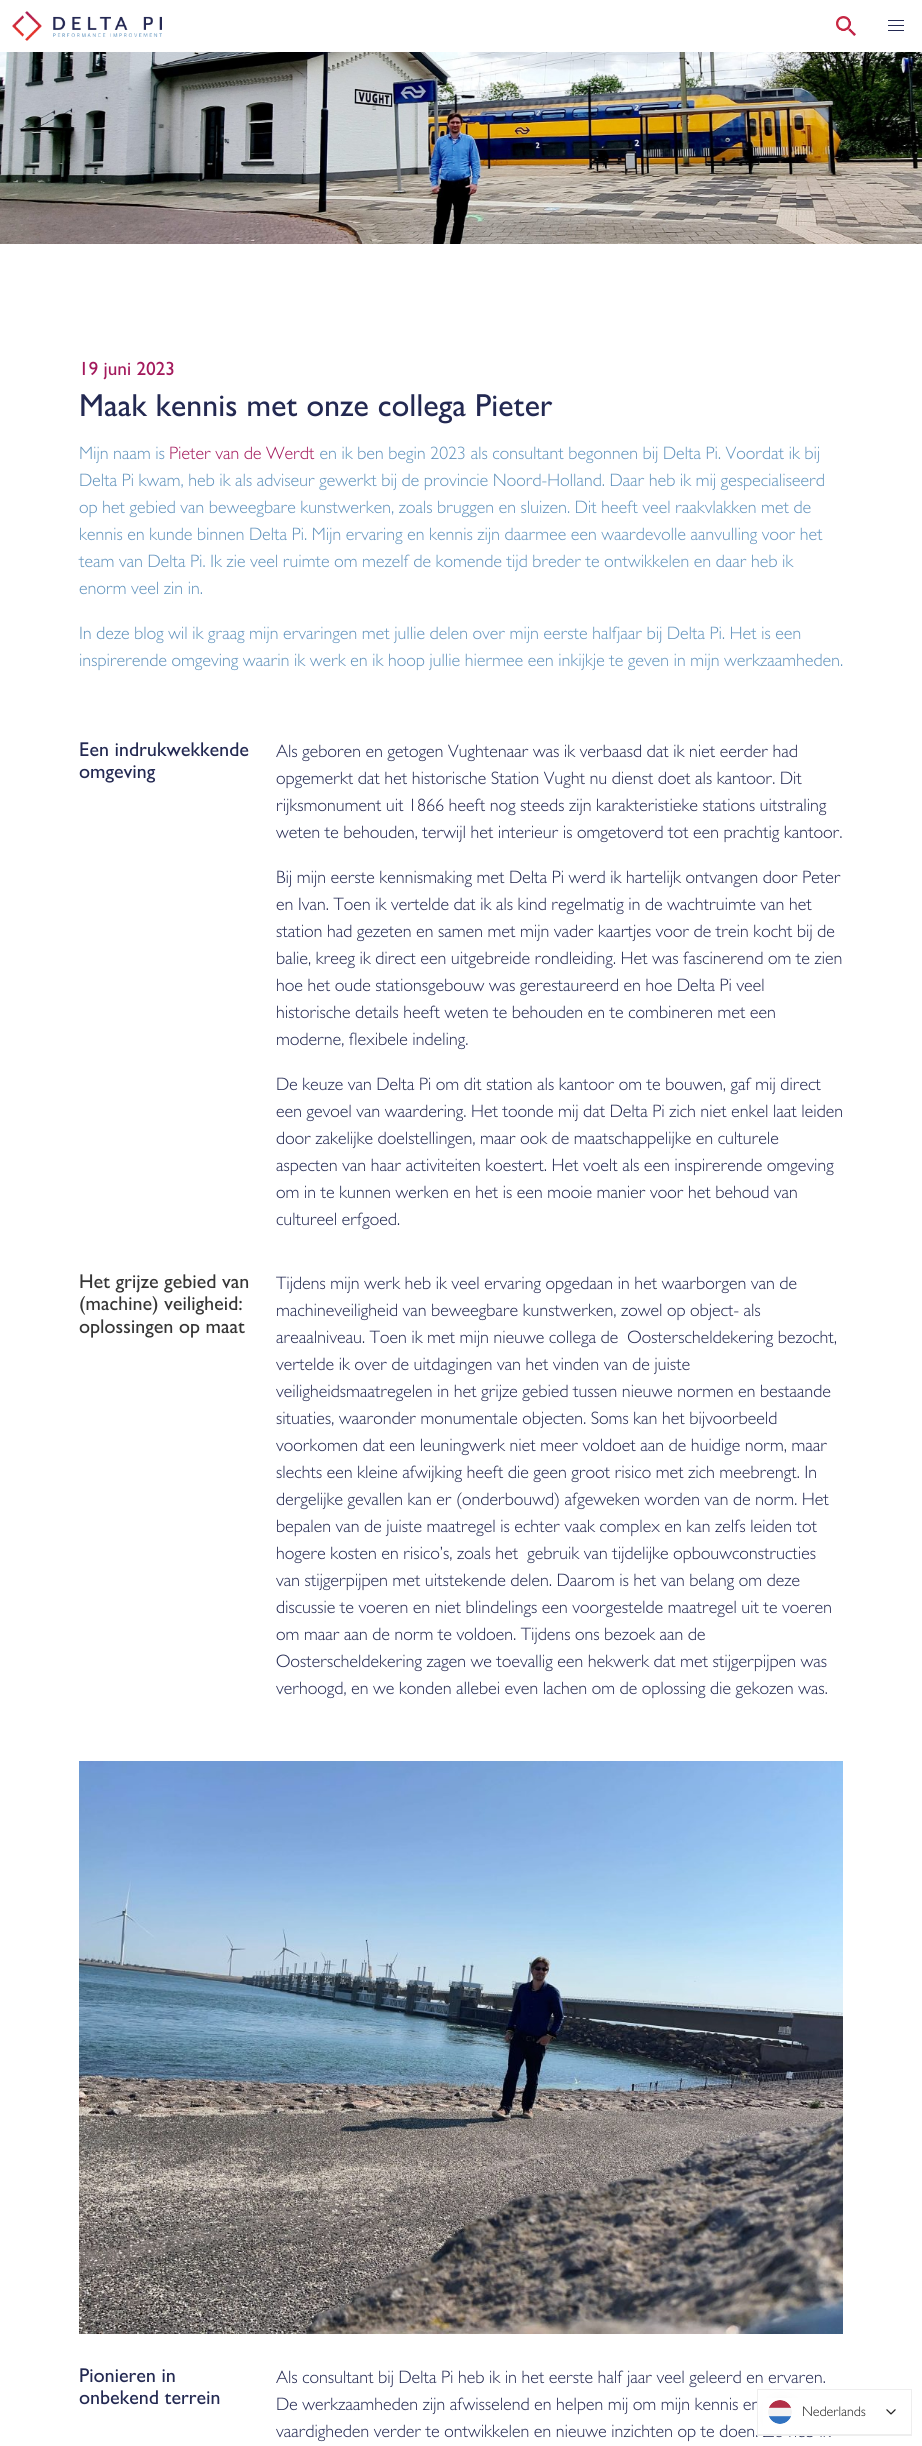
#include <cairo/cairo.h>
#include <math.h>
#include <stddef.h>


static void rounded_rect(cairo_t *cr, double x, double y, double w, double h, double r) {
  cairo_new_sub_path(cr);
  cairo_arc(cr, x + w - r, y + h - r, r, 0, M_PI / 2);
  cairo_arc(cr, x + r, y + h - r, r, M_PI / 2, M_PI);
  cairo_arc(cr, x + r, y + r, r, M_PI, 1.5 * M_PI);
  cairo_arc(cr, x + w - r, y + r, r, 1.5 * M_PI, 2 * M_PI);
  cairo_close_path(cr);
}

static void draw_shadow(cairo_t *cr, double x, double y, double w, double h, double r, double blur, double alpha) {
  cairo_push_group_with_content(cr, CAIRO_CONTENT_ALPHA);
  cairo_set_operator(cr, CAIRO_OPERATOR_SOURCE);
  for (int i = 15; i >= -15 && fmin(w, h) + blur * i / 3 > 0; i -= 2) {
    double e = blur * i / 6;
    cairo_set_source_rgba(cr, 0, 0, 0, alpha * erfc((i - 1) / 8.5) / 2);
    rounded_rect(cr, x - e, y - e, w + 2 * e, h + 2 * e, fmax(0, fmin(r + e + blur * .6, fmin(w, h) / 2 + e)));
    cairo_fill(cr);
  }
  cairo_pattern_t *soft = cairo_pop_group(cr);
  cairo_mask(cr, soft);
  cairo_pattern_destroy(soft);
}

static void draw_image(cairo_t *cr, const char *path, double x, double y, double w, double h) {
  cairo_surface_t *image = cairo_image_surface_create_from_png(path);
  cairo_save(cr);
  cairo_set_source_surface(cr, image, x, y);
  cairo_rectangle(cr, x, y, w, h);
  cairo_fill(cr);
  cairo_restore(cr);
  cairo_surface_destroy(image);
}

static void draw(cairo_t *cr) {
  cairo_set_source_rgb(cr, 1, 1, 1);
  cairo_paint(cr);
  draw_image(cr, "images/1.png", 12, 11, 150, 30);
  draw_image(cr, "images/2.png", 836, 16, 20, 20);
  cairo_set_source_rgb(cr, 35 / 255.0, 41 / 255.0, 82 / 255.0);
  cairo_rectangle(cr, 888, 20, 16, 1);
  cairo_fill(cr);
  cairo_rectangle(cr, 888, 25, 16, 1);
  cairo_fill(cr);
  cairo_rectangle(cr, 888, 30, 16, 1);
  cairo_fill(cr);
  draw_image(cr, "images/3.png", 0, 52, 922, 192);
  draw_image(cr, "images/4.png", 82, 361, 92, 19);
  draw_image(cr, "images/5.png", 81, 394, 472, 30);
  draw_image(cr, "images/6.png", 80, 446, 85, 18);
  draw_image(cr, "images/7.png", 170, 446, 145, 14);
  draw_image(cr, "images/8.png", 320, 446, 499, 18);
  draw_image(cr, "images/9.png", 80, 473, 744, 18);
  draw_image(cr, "images/10.png", 79, 500, 732, 18);
  draw_image(cr, "images/11.png", 80, 527, 743, 18);
  draw_image(cr, "images/12.png", 78, 554, 716, 18);
  draw_image(cr, "images/13.png", 79, 581, 123, 14);
  draw_image(cr, "images/14.png", 80, 626, 721, 18);
  draw_image(cr, "images/15.png", 80, 653, 763, 18);
  draw_image(cr, "images/16.png", 80, 742, 169, 15);
  draw_image(cr, "images/17.png", 79, 765, 77, 18);
  draw_image(cr, "images/18.png", 276, 744, 521, 18);
  draw_image(cr, "images/19.png", 276, 771, 526, 18);
  draw_image(cr, "images/20.png", 277, 798, 550, 18);
  draw_image(cr, "images/21.png", 276, 825, 566, 18);
  draw_image(cr, "images/22.png", 277, 870, 564, 18);
  draw_image(cr, "images/23.png", 276, 897, 536, 18);
  draw_image(cr, "images/24.png", 276, 924, 559, 18);
  draw_image(cr, "images/25.png", 277, 951, 565, 18);
  draw_image(cr, "images/26.png", 277, 978, 487, 18);
  draw_image(cr, "images/27.png", 277, 1005, 498, 14);
  draw_image(cr, "images/28.png", 277, 1032, 191, 18);
  draw_image(cr, "images/29.png", 277, 1077, 544, 18);
  draw_image(cr, "images/30.png", 276, 1104, 566, 18);
  draw_image(cr, "images/31.png", 276, 1131, 503, 18);
  draw_image(cr, "images/32.png", 276, 1158, 558, 18);
  draw_image(cr, "images/33.png", 276, 1185, 521, 14);
  draw_image(cr, "images/34.png", 276, 1212, 124, 18);
  draw_image(cr, "images/35.png", 80, 1274, 169, 19);
  draw_image(cr, "images/36.png", 80, 1296, 162, 19);
  draw_image(cr, "images/37.png", 79, 1319, 166, 19);
  draw_image(cr, "images/38.png", 276, 1276, 521, 18);
  draw_image(cr, "images/39.png", 277, 1303, 484, 18);
  draw_image(cr, "images/40.png", 276, 1330, 560, 18);
  draw_image(cr, "images/41.png", 276, 1357, 414, 18);
  draw_image(cr, "images/42.png", 276, 1384, 555, 18);
  draw_image(cr, "images/43.png", 276, 1411, 501, 18);
  draw_image(cr, "images/44.png", 276, 1438, 551, 18);
  draw_image(cr, "images/45.png", 276, 1465, 540, 18);
  draw_image(cr, "images/46.png", 276, 1492, 553, 18);
  draw_image(cr, "images/47.png", 277, 1519, 540, 18);
  draw_image(cr, "images/48.png", 277, 1546, 539, 18);
  draw_image(cr, "images/49.png", 276, 1573, 524, 18);
  draw_image(cr, "images/50.png", 276, 1600, 555, 18);
  draw_image(cr, "images/51.png", 276, 1627, 429, 18);
  draw_image(cr, "images/52.png", 276, 1654, 551, 18);
  draw_image(cr, "images/53.png", 276, 1681, 551, 18);
  draw_image(cr, "images/54.png", 79, 1761, 764, 573);
  draw_image(cr, "images/55.png", 80, 2368, 95, 15);
  draw_image(cr, "images/56.png", 79, 2390, 141, 15);
  draw_image(cr, "images/57.png", 276, 2370, 549, 18);
  draw_image(cr, "images/58.png", 277, 2397, 480, 18);
  draw_image(cr, "images/59.png", 276, 2424, 555, 18);
  cairo_set_source_rgb(cr, 238 / 255.0, 238 / 255.0, 238 / 255.0);
  draw_shadow(cr, 770, 2402, 24, 24, 12, 6, 0.8);
  cairo_set_source_rgb(cr, 1, 1, 1);
  cairo_rectangle(cr, 763, 2398, 68, 36);
  cairo_fill(cr);
  cairo_set_source_rgb(cr, 238 / 255.0, 238 / 255.0, 238 / 255.0);
  cairo_rectangle(cr, 757, 2435, 155, 1);
  cairo_fill(cr);
  cairo_rectangle(cr, 757.5, 2389.5, 154, 45);
  cairo_set_line_width(cr, 1);
  cairo_stroke(cr);
  draw_image(cr, "images/60.png", 768, 2400, 24, 24);
  draw_image(cr, "images/61.png", 803, 2406, 63, 11);
  draw_image(cr, "images/62.png", 886, 2409, 10, 6);
}

int main(void) {
  cairo_surface_t *surface = cairo_image_surface_create(CAIRO_FORMAT_RGB24, 922, 2446);
  cairo_t *cr = cairo_create(surface);
  cairo_font_options_t *options = cairo_font_options_create();
  cairo_font_options_set_hint_metrics(options, CAIRO_HINT_METRICS_OFF);
  cairo_font_options_set_hint_style(options, CAIRO_HINT_STYLE_NONE);
  cairo_set_font_options(cr, options);
  cairo_set_miter_limit(cr, 4);
  draw(cr);
  cairo_surface_write_to_png(surface, "out.png");
  cairo_font_options_destroy(options);
  cairo_destroy(cr);
  cairo_surface_destroy(surface);
  return 0;
}
